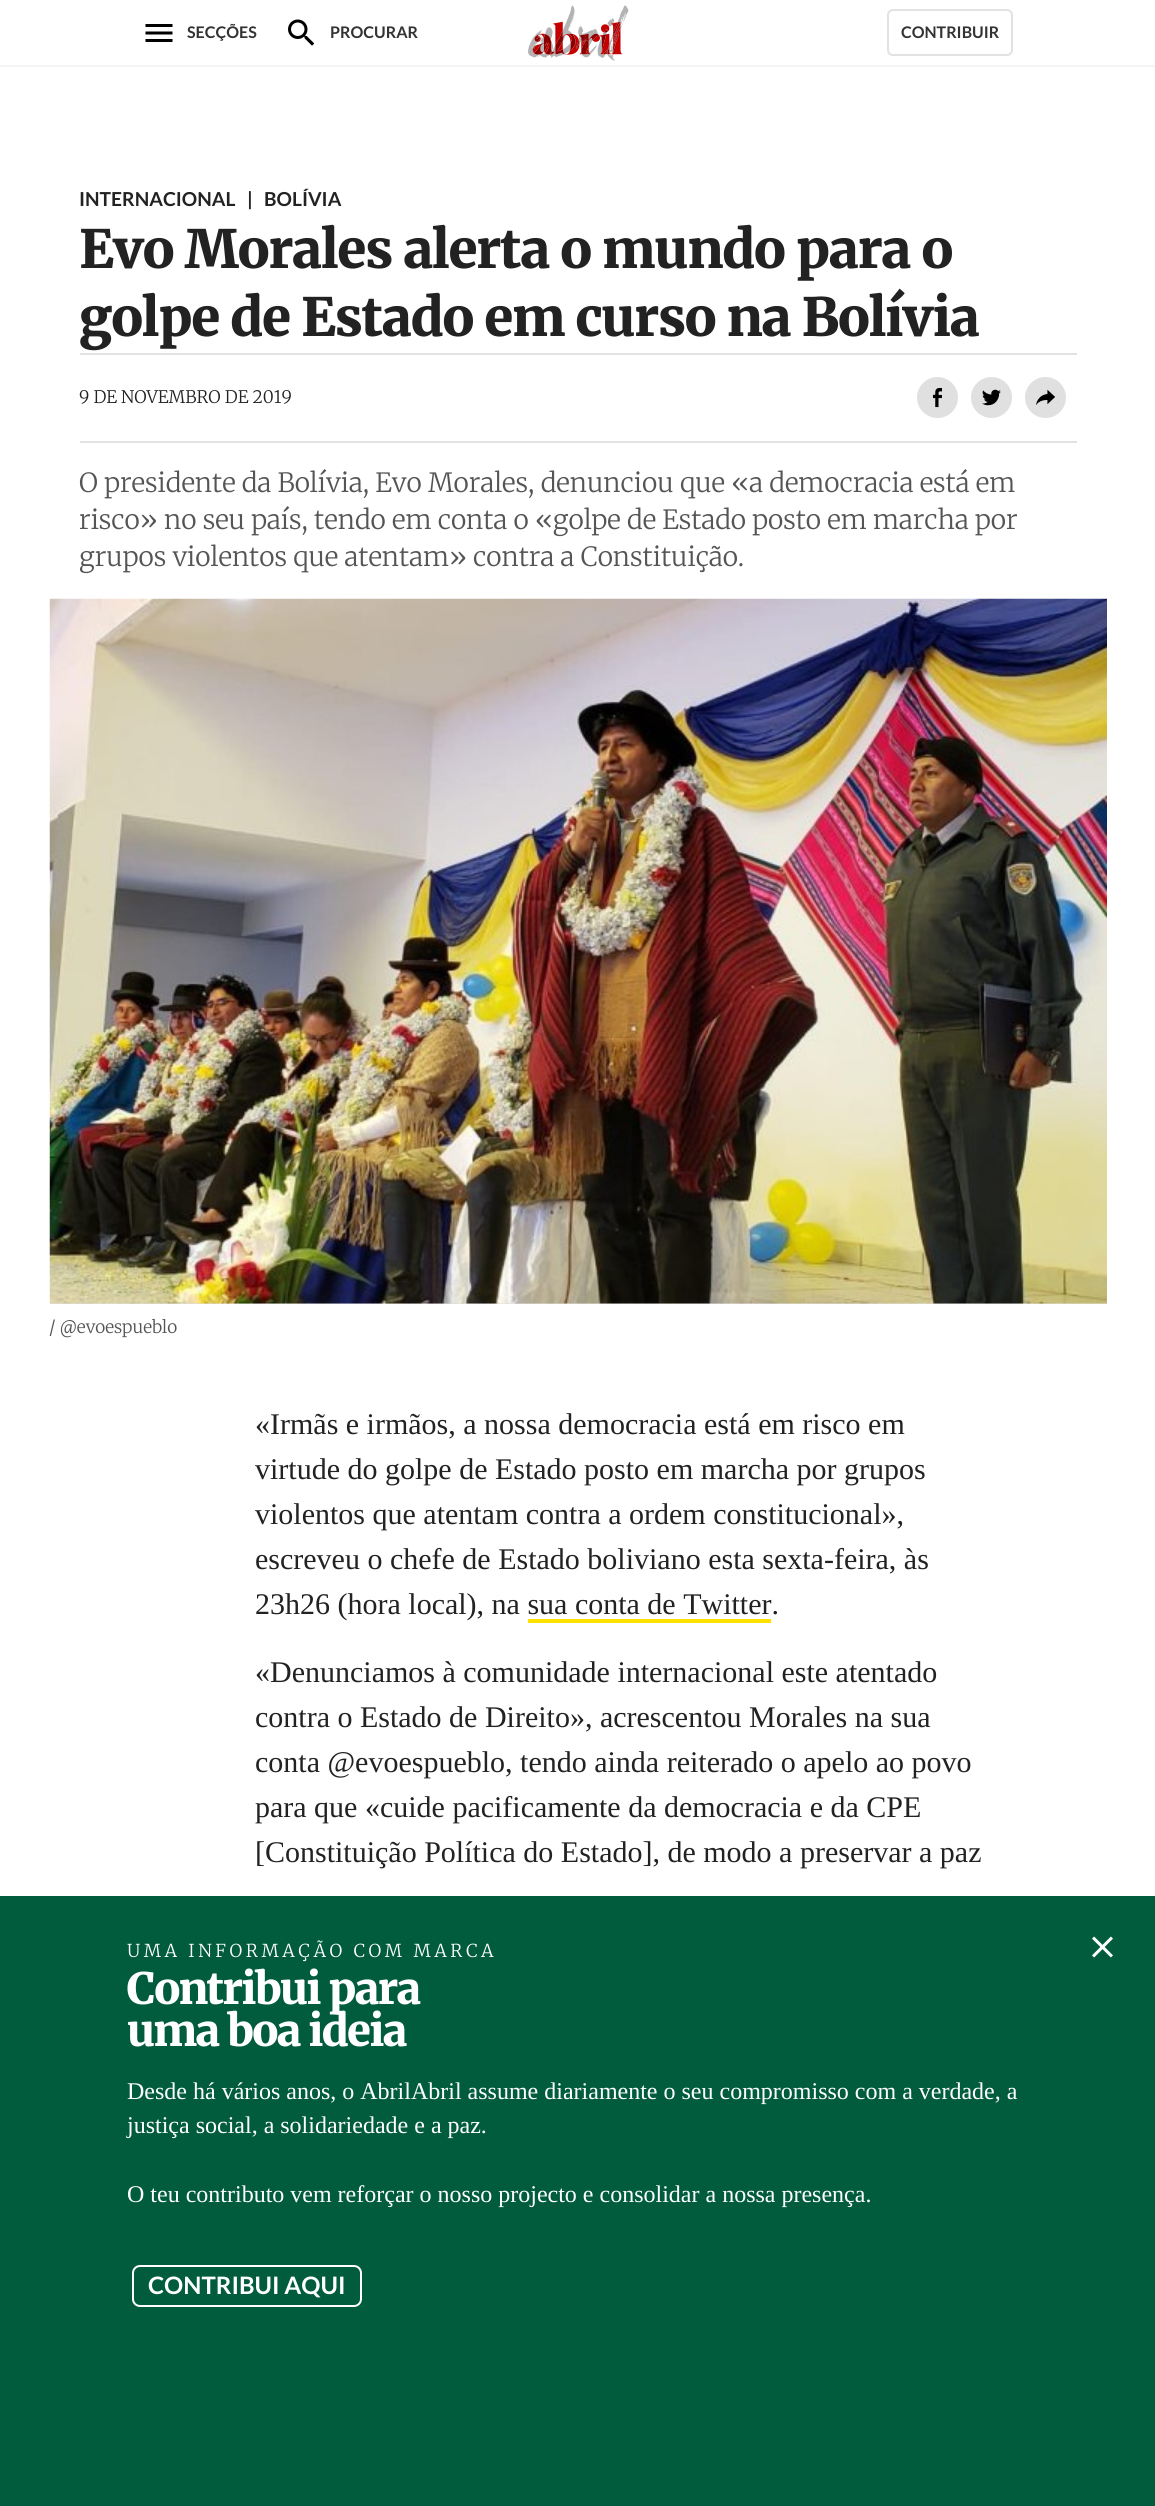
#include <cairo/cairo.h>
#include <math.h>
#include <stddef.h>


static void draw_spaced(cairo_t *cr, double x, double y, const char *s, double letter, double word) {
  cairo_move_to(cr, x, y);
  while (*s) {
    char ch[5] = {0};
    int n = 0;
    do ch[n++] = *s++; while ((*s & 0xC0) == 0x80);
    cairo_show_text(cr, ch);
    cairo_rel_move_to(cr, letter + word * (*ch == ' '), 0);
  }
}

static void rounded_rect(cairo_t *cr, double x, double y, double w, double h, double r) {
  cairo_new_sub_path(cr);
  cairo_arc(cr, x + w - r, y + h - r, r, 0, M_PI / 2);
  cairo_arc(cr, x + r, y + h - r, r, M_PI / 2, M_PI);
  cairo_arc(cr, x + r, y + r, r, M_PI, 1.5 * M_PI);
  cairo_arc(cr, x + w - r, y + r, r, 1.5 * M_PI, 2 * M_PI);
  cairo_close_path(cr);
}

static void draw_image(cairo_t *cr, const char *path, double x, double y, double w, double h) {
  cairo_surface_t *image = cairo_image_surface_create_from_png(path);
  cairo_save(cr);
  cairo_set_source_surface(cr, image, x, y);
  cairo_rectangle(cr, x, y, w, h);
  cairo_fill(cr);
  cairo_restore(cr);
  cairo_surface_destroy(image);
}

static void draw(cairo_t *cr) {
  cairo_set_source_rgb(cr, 1, 1, 1);
  cairo_paint(cr);
  cairo_set_source_rgb(cr, 245 / 255.0, 245 / 255.0, 245 / 255.0);
  cairo_rectangle(cr, 0, 65, 1155, 2);
  cairo_fill(cr);
  draw_image(cr, "images/1.png", 145, 24, 28, 18);
  draw_image(cr, "images/2.png", 288, 19, 27, 27);
  draw_image(cr, "images/3.png", 528, 5, 101, 56);
  rounded_rect(cr, 888, 10, 124, 45, 5);
  cairo_set_source_rgb(cr, 226 / 255.0, 226 / 255.0, 226 / 255.0);
  cairo_stroke(cr);
  cairo_rectangle(cr, 80, 353, 997, 2);
  cairo_fill(cr);
  cairo_rectangle(cr, 80, 441, 997, 2);
  cairo_fill(cr);
  cairo_set_source_rgb(cr, 224 / 255.0, 224 / 255.0, 224 / 255.0);
  cairo_arc(cr, 937.5, 397.5, 21.5, 0, 2 * M_PI);
  cairo_fill_preserve(cr);
  cairo_set_source_rgb(cr, 1, 1, 1);
  cairo_stroke(cr);
  draw_image(cr, "images/4.png", 933, 387, 9, 21);
  cairo_set_source_rgb(cr, 224 / 255.0, 224 / 255.0, 224 / 255.0);
  cairo_arc(cr, 991.5, 397.5, 21.5, 0, 2 * M_PI);
  cairo_fill_preserve(cr);
  cairo_set_source_rgb(cr, 1, 1, 1);
  cairo_stroke(cr);
  draw_image(cr, "images/5.png", 982, 389, 19, 17);
  cairo_set_source_rgb(cr, 224 / 255.0, 224 / 255.0, 224 / 255.0);
  cairo_arc(cr, 1045.5, 397.5, 21.5, 0, 2 * M_PI);
  cairo_fill_preserve(cr);
  cairo_set_source_rgb(cr, 1, 1, 1);
  cairo_stroke(cr);
  draw_image(cr, "images/6.png", 1035, 389, 21, 16);
  cairo_set_source_rgb(cr, 223 / 255.0, 223 / 255.0, 223 / 255.0);
  cairo_rectangle(cr, 50, 1303, 1057, 1);
  cairo_fill(cr);
  draw_image(cr, "images/7.png", 49, 598, 1058, 706);
  cairo_set_source_rgb(cr, 1 / 255.0, 92 / 255.0, 62 / 255.0);
  cairo_rectangle(cr, 0, 1896, 1155, 610);
  cairo_fill(cr);
  rounded_rect(cr, 133, 2266, 228, 40, 7);
  cairo_set_source_rgb(cr, 1, 1, 1);
  cairo_stroke(cr);
  draw_image(cr, "images/8.png", 1092, 1936, 21, 22);
  cairo_select_font_face(cr, "Lato", CAIRO_FONT_SLANT_NORMAL, CAIRO_FONT_WEIGHT_BOLD);
  cairo_set_font_size(cr, 16);
  cairo_set_source_rgb(cr, 51 / 255.0, 51 / 255.0, 51 / 255.0);
  cairo_move_to(cr, 187, 38);
  cairo_show_text(cr, "SECÇÕES");
  cairo_move_to(cr, 330, 38);
  cairo_show_text(cr, "PROCURAR");
  cairo_move_to(cr, 901, 38);
  cairo_show_text(cr, "CONTRIBUIR");
  cairo_set_font_size(cr, 19.25);
  cairo_set_source_rgb(cr, 34 / 255.0, 34 / 255.0, 34 / 255.0);
  cairo_move_to(cr, 79, 206);
  cairo_show_text(cr, "INTERNACIONAL");
  cairo_move_to(cr, 247, 206);
  cairo_show_text(cr, "|");
  cairo_move_to(cr, 264, 206);
  cairo_show_text(cr, "BOLÍVIA");
  cairo_select_font_face(cr, "Merriweather Black", CAIRO_FONT_SLANT_NORMAL, CAIRO_FONT_WEIGHT_NORMAL);
  cairo_set_font_size(cr, 52.75);
  draw_spaced(cr, 79, 268, "Evo Morales alerta o mundo para o", -1.3, 0);
  draw_spaced(cr, 79, 336, "golpe de Estado em curso na Bolívia", -1.3, 0);
  cairo_select_font_face(cr, "Merriweather Light", CAIRO_FONT_SLANT_NORMAL, CAIRO_FONT_WEIGHT_NORMAL);
  cairo_set_font_size(cr, 17.25);
  cairo_move_to(cr, 79, 403);
  cairo_show_text(cr, "9 DE NOVEMBRO DE 2019");
  cairo_set_font_size(cr, 26.4);
  cairo_set_source_rgb(cr, 85 / 255.0, 85 / 255.0, 85 / 255.0);
  cairo_move_to(cr, 79, 492);
  cairo_show_text(cr, "O presidente da Bolívia, Evo Morales, denunciou que «a democracia está em");
  cairo_move_to(cr, 79, 529);
  cairo_show_text(cr, "risco» no seu país, tendo em conta o «golpe de Estado posto em marcha por");
  cairo_move_to(cr, 79, 566);
  cairo_show_text(cr, "grupos violentos que atentam» contra a Constituição.");
  cairo_set_font_size(cr, 17.25);
  cairo_move_to(cr, 49, 1333);
  cairo_show_text(cr, "/ @evoespueblo");
  cairo_select_font_face(cr, "Liberation Serif", CAIRO_FONT_SLANT_NORMAL, CAIRO_FONT_WEIGHT_NORMAL);
  cairo_set_font_size(cr, 30);
  cairo_set_source_rgb(cr, 34 / 255.0, 34 / 255.0, 34 / 255.0);
  cairo_move_to(cr, 255, 1434);
  cairo_show_text(cr, "«Irmãs e irmãos, a nossa democracia está em risco em");
  cairo_move_to(cr, 255, 1479);
  cairo_show_text(cr, "virtude do golpe de Estado posto em marcha por grupos");
  cairo_move_to(cr, 255, 1524);
  cairo_show_text(cr, "violentos que atentam contra a ordem constitucional»,");
  cairo_move_to(cr, 255, 1569);
  cairo_show_text(cr, "escreveu o chefe de Estado boliviano esta sexta-feira, às");
  cairo_move_to(cr, 255, 1614);
  cairo_show_text(cr, "23h26 (hora local), na sua conta de Twitter.");
  cairo_set_source_rgb(cr, 1, 224 / 255.0, 0);
  cairo_rectangle(cr, 528, 1619, 243, 4);
  cairo_fill(cr);
  cairo_set_source_rgb(cr, 34 / 255.0, 34 / 255.0, 34 / 255.0);
  cairo_move_to(cr, 255, 1682);
  cairo_show_text(cr, "«Denunciamos à comunidade internacional este atentado");
  cairo_move_to(cr, 255, 1727);
  cairo_show_text(cr, "contra o Estado de Direito», acrescentou Morales na sua");
  cairo_move_to(cr, 255, 1772);
  cairo_show_text(cr, "conta @evoespueblo, tendo ainda reiterado o apelo ao povo");
  cairo_move_to(cr, 255, 1817);
  cairo_show_text(cr, "para que «cuide pacificamente da democracia e da CPE");
  cairo_move_to(cr, 255, 1862);
  cairo_show_text(cr, "[Constituição Política do Estado], de modo a preservar a paz");
  cairo_select_font_face(cr, "Merriweather Light", CAIRO_FONT_SLANT_NORMAL, CAIRO_FONT_WEIGHT_NORMAL);
  cairo_set_font_size(cr, 17.75);
  cairo_set_source_rgb(cr, 1, 1, 1);
  draw_spaced(cr, 127, 1957, "UMA INFORMAÇÃO COM MARCA", 3.55, 0);
  cairo_select_font_face(cr, "Merriweather Black", CAIRO_FONT_SLANT_NORMAL, CAIRO_FONT_WEIGHT_NORMAL);
  cairo_set_font_size(cr, 43.25);
  draw_spaced(cr, 127, 2004, "Contribui para", -1.75, 0);
  draw_spaced(cr, 127, 2046, "uma boa ideia", -1.75, 0);
  cairo_select_font_face(cr, "Liberation Serif", CAIRO_FONT_SLANT_NORMAL, CAIRO_FONT_WEIGHT_NORMAL);
  cairo_set_font_size(cr, 24);
  cairo_move_to(cr, 127, 2099);
  cairo_show_text(cr, "Desde há vários anos, o AbrilAbril assume diariamente o seu compromisso com a verdade, a");
  cairo_move_to(cr, 127, 2133);
  cairo_show_text(cr, "justiça social, a solidariedade e a paz.");
  cairo_move_to(cr, 127, 2202);
  cairo_show_text(cr, "O teu contributo vem reforçar o nosso projecto e consolidar a nossa presença.");
  cairo_select_font_face(cr, "Lato", CAIRO_FONT_SLANT_NORMAL, CAIRO_FONT_WEIGHT_BOLD);
  cairo_move_to(cr, 148, 2294);
  cairo_show_text(cr, "CONTRIBUI AQUI");
}

int main(void) {
  cairo_surface_t *surface = cairo_image_surface_create(CAIRO_FORMAT_RGB24, 1155, 2506);
  cairo_t *cr = cairo_create(surface);
  cairo_font_options_t *options = cairo_font_options_create();
  cairo_font_options_set_hint_metrics(options, CAIRO_HINT_METRICS_OFF);
  cairo_font_options_set_hint_style(options, CAIRO_HINT_STYLE_NONE);
  cairo_set_font_options(cr, options);
  cairo_set_miter_limit(cr, 4);
  draw(cr);
  cairo_surface_write_to_png(surface, "out.png");
  cairo_font_options_destroy(options);
  cairo_destroy(cr);
  cairo_surface_destroy(surface);
  return 0;
}
